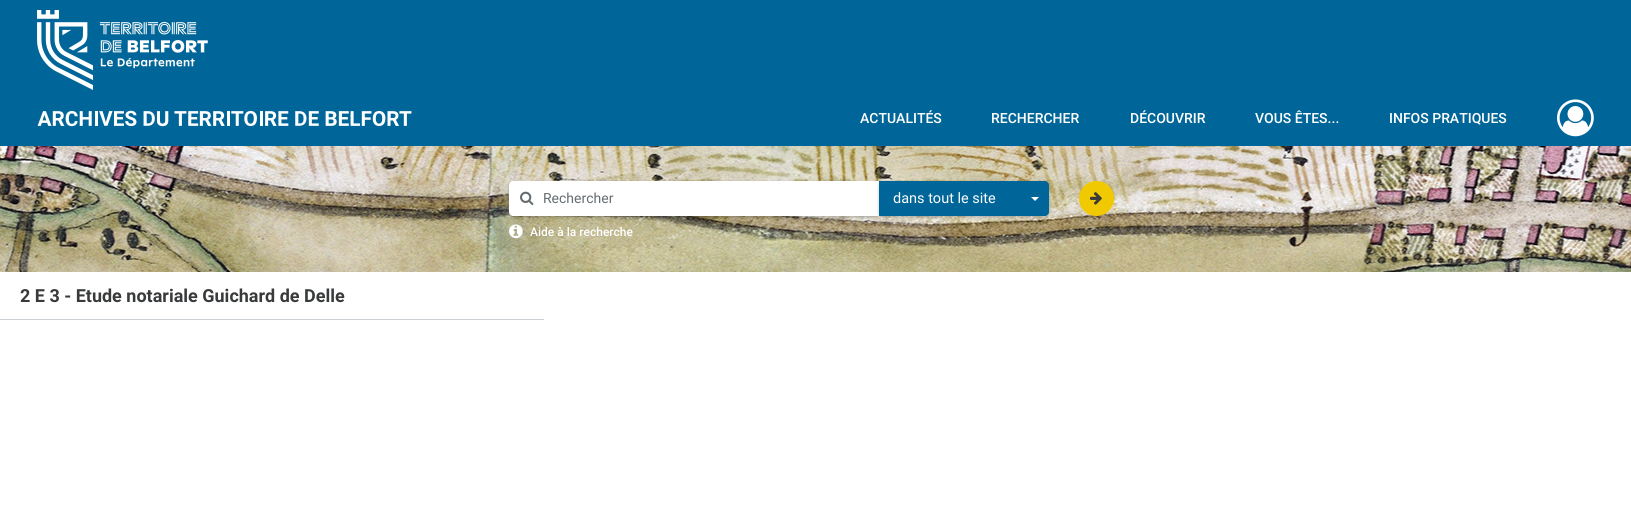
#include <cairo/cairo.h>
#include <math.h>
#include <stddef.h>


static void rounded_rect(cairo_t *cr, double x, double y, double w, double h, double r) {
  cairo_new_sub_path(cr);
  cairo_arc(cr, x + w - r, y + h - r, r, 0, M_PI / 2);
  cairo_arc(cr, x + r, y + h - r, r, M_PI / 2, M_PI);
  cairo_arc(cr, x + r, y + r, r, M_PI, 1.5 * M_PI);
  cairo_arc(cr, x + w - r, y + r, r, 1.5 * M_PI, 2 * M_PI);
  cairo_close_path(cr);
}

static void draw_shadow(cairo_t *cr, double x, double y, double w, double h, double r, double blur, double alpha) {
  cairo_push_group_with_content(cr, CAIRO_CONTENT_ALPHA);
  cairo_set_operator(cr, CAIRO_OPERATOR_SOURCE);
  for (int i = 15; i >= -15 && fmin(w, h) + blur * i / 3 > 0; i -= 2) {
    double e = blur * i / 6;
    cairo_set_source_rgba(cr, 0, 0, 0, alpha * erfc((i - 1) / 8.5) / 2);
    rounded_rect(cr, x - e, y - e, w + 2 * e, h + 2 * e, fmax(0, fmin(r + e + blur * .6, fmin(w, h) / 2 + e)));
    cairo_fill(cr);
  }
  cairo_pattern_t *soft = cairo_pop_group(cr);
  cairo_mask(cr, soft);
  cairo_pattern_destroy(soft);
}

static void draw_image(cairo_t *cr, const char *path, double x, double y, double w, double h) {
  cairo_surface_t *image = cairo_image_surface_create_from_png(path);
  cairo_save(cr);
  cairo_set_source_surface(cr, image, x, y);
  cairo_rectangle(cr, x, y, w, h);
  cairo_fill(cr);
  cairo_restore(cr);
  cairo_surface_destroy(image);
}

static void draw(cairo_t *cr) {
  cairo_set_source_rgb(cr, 1, 1, 1);
  cairo_paint(cr);
  cairo_set_source_rgb(cr, 0, 102 / 255.0, 153 / 255.0);
  cairo_rectangle(cr, 0, 0, 1631, 146);
  cairo_fill(cr);
  draw_image(cr, "images/1.png", 37, 10, 171, 80);
  draw_image(cr, "images/2.png", 37, 110, 375, 17);
  draw_image(cr, "images/3.png", 1557, 99, 37, 38);
  draw_image(cr, "images/4.png", 0, 146, 1631, 126);
  cairo_set_source_rgb(cr, 0, 0, 0);
  draw_shadow(cr, 509, 182, 370, 35, 4, 1.5, 0.25);
  cairo_set_source_rgb(cr, 1, 1, 1);
  cairo_new_path(cr);
  cairo_move_to(cr, 513, 181);
  cairo_line_to(cr, 879, 181);
  cairo_line_to(cr, 879, 216);
  cairo_line_to(cr, 513, 216);
  cairo_curve_to(cr, 511, 216, 509, 214, 509, 212);
  cairo_line_to(cr, 509, 185);
  cairo_curve_to(cr, 509, 183, 511, 181, 513, 181);
  cairo_close_path(cr);
  cairo_fill(cr);
  draw_image(cr, "images/5.png", 520, 191, 14, 14);
  cairo_set_source_rgb(cr, 0, 0, 0);
  draw_shadow(cr, 879, 182, 170, 35, 4, 1.5, 0.25);
  cairo_set_source_rgb(cr, 0, 102 / 255.0, 153 / 255.0);
  cairo_new_path(cr);
  cairo_move_to(cr, 879, 181);
  cairo_line_to(cr, 1045, 181);
  cairo_curve_to(cr, 1047, 181, 1049, 183, 1049, 185);
  cairo_line_to(cr, 1049, 212);
  cairo_curve_to(cr, 1049, 214, 1047, 216, 1045, 216);
  cairo_line_to(cr, 879, 216);
  cairo_close_path(cr);
  cairo_fill(cr);
  cairo_set_source_rgb(cr, 1, 1, 1);
  cairo_new_path(cr);
  cairo_move_to(cr, 1031, 197);
  cairo_line_to(cr, 1039, 197);
  cairo_line_to(cr, 1035, 201);
  cairo_close_path(cr);
  cairo_fill(cr);
  cairo_set_source_rgb(cr, 241 / 255.0, 201 / 255.0, 2 / 255.0);
  cairo_arc(cr, 1096.5, 198.5, 17.5, 0, 2 * M_PI);
  cairo_fill(cr);
  draw_image(cr, "images/6.png", 1090, 192, 12, 13);
  draw_image(cr, "images/7.png", 509, 224, 14, 15);
  cairo_set_source_rgb(cr, 202 / 255.0, 208 / 255.0, 212 / 255.0);
  cairo_rectangle(cr, 0, 319, 544, 1);
  cairo_fill(cr);
  cairo_select_font_face(cr, "Roboto Medium", CAIRO_FONT_SLANT_NORMAL, CAIRO_FONT_WEIGHT_NORMAL);
  cairo_set_font_size(cr, 14);
  cairo_set_source_rgb(cr, 1, 1, 1);
  cairo_move_to(cr, 860, 123);
  cairo_show_text(cr, "ACTUALITÉS");
  cairo_move_to(cr, 991, 123);
  cairo_show_text(cr, "RECHERCHER");
  cairo_move_to(cr, 1130, 123);
  cairo_show_text(cr, "DÉCOUVRIR");
  cairo_move_to(cr, 1255, 123);
  cairo_show_text(cr, "VOUS ÊTES...");
  cairo_move_to(cr, 1389, 123);
  cairo_show_text(cr, "INFOS PRATIQUES");
  cairo_select_font_face(cr, "Roboto", CAIRO_FONT_SLANT_NORMAL, CAIRO_FONT_WEIGHT_NORMAL);
  cairo_set_source_rgb(cr, 101 / 255.0, 108 / 255.0, 113 / 255.0);
  cairo_move_to(cr, 543, 203);
  cairo_show_text(cr, "Rechercher");
  cairo_set_font_size(cr, 14.5);
  cairo_set_source_rgb(cr, 1, 1, 1);
  cairo_move_to(cr, 893, 203);
  cairo_show_text(cr, "dans tout le site");
  cairo_select_font_face(cr, "Roboto Medium", CAIRO_FONT_SLANT_NORMAL, CAIRO_FONT_WEIGHT_NORMAL);
  cairo_set_font_size(cr, 12);
  cairo_move_to(cr, 530, 236);
  cairo_show_text(cr, "Aide à la recherche");
  cairo_select_font_face(cr, "Roboto", CAIRO_FONT_SLANT_NORMAL, CAIRO_FONT_WEIGHT_BOLD);
  cairo_set_font_size(cr, 18);
  cairo_set_source_rgb(cr, 56 / 255.0, 58 / 255.0, 59 / 255.0);
  cairo_move_to(cr, 20, 302);
  cairo_show_text(cr, "2 E 3 - Etude notariale Guichard de Delle");
}

int main(void) {
  cairo_surface_t *surface = cairo_image_surface_create(CAIRO_FORMAT_RGB24, 1631, 507);
  cairo_t *cr = cairo_create(surface);
  cairo_font_options_t *options = cairo_font_options_create();
  cairo_font_options_set_hint_metrics(options, CAIRO_HINT_METRICS_OFF);
  cairo_font_options_set_hint_style(options, CAIRO_HINT_STYLE_NONE);
  cairo_set_font_options(cr, options);
  cairo_set_miter_limit(cr, 4);
  draw(cr);
  cairo_surface_write_to_png(surface, "out.png");
  cairo_font_options_destroy(options);
  cairo_destroy(cr);
  cairo_surface_destroy(surface);
  return 0;
}
